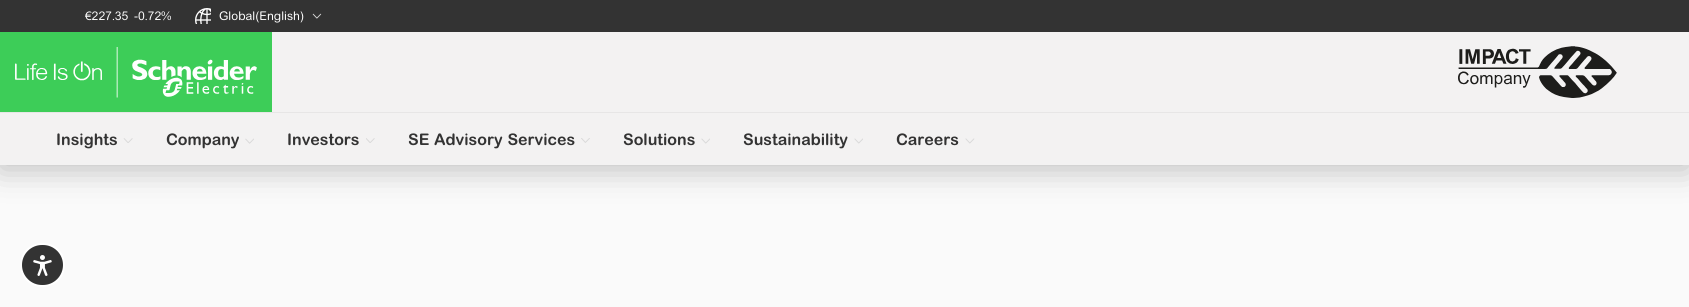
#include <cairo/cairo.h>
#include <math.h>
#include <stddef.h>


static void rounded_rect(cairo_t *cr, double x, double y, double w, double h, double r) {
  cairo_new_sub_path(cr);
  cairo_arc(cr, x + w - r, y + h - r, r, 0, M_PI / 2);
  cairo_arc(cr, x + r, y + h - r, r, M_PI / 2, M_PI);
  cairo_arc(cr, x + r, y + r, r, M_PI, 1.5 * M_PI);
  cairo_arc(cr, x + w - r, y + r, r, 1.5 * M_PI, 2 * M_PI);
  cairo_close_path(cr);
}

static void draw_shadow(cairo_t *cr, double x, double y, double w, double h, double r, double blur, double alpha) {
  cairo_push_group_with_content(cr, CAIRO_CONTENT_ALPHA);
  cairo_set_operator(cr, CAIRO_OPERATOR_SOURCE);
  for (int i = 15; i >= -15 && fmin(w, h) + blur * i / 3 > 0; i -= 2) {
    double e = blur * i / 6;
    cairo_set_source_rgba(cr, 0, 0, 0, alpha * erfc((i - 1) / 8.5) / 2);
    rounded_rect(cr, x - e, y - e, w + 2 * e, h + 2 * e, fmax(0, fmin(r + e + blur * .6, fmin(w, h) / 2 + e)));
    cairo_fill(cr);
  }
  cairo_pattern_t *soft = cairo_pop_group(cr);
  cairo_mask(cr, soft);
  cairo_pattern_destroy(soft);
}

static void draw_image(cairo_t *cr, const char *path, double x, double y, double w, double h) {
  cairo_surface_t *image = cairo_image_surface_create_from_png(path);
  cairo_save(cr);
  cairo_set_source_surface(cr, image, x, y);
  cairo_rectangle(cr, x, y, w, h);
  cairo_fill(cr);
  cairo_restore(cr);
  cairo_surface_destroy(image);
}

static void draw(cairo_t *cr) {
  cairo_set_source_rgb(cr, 250 / 255.0, 250 / 255.0, 250 / 255.0);
  cairo_paint(cr);
  cairo_set_source_rgb(cr, 0, 0, 0);
  draw_shadow(cr, 0, 36, 1689, 133, 0, 16, 0.25);
  cairo_set_source_rgb(cr, 51 / 255.0, 51 / 255.0, 51 / 255.0);
  cairo_rectangle(cr, 0, 0, 1689, 32);
  cairo_fill(cr);
  draw_image(cr, "images/1.png", 195, 8, 16, 16);
  draw_image(cr, "images/2.png", 312, 13, 10, 6);
  cairo_set_source_rgb(cr, 243 / 255.0, 242 / 255.0, 242 / 255.0);
  cairo_rectangle(cr, 0, 32, 1689, 133);
  cairo_fill(cr);
  cairo_set_source_rgb(cr, 231 / 255.0, 230 / 255.0, 230 / 255.0);
  cairo_rectangle(cr, 0, 112, 1689, 1);
  cairo_fill(cr);
  cairo_set_source_rgb(cr, 61 / 255.0, 205 / 255.0, 88 / 255.0);
  cairo_rectangle(cr, 0, 32, 272, 80);
  cairo_fill(cr);
  draw_image(cr, "images/3.png", 15, 47, 242, 51);
  draw_image(cr, "images/4.png", 1458, 46, 159, 52);
  draw_image(cr, "images/5.png", 123, 138, 10, 5);
  draw_image(cr, "images/6.png", 245, 138, 9, 6);
  draw_image(cr, "images/7.png", 366, 138, 9, 5);
  draw_image(cr, "images/8.png", 581, 138, 9, 5);
  draw_image(cr, "images/9.png", 701, 138, 9, 6);
  draw_image(cr, "images/10.png", 854, 138, 9, 6);
  draw_image(cr, "images/11.png", 965, 138, 10, 6);
  cairo_set_source_rgb(cr, 51 / 255.0, 51 / 255.0, 51 / 255.0);
  rounded_rect(cr, 21, 244, 43, 42, 21);
  cairo_fill_preserve(cr);
  cairo_set_source_rgb(cr, 1, 1, 1);
  cairo_stroke(cr);
  draw_image(cr, "images/12.png", 33, 255, 19, 21);
  cairo_select_font_face(cr, "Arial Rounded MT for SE", CAIRO_FONT_SLANT_NORMAL, CAIRO_FONT_WEIGHT_NORMAL);
  cairo_set_font_size(cr, 12);
  cairo_move_to(cr, 85, 20);
  cairo_show_text(cr, "€227.35");
  cairo_move_to(cr, 134, 20);
  cairo_show_text(cr, "-0.72%");
  cairo_move_to(cr, 219, 20);
  cairo_show_text(cr, "Global(English)");
  cairo_select_font_face(cr, "Arial Rounded MT for SE", CAIRO_FONT_SLANT_NORMAL, CAIRO_FONT_WEIGHT_BOLD);
  cairo_set_font_size(cr, 16);
  cairo_set_source_rgb(cr, 51 / 255.0, 51 / 255.0, 51 / 255.0);
  cairo_move_to(cr, 56, 145);
  cairo_show_text(cr, "Insights");
  cairo_move_to(cr, 166, 145);
  cairo_show_text(cr, "Company");
  cairo_move_to(cr, 287, 145);
  cairo_show_text(cr, "Investors");
  cairo_move_to(cr, 408, 145);
  cairo_show_text(cr, "SE Advisory Services");
  cairo_move_to(cr, 623, 145);
  cairo_show_text(cr, "Solutions");
  cairo_move_to(cr, 743, 145);
  cairo_show_text(cr, "Sustainability");
  cairo_move_to(cr, 896, 145);
  cairo_show_text(cr, "Careers");
}

int main(void) {
  cairo_surface_t *surface = cairo_image_surface_create(CAIRO_FORMAT_RGB24, 1689, 307);
  cairo_t *cr = cairo_create(surface);
  cairo_font_options_t *options = cairo_font_options_create();
  cairo_font_options_set_hint_metrics(options, CAIRO_HINT_METRICS_OFF);
  cairo_font_options_set_hint_style(options, CAIRO_HINT_STYLE_NONE);
  cairo_set_font_options(cr, options);
  cairo_set_miter_limit(cr, 4);
  draw(cr);
  cairo_surface_write_to_png(surface, "out.png");
  cairo_font_options_destroy(options);
  cairo_destroy(cr);
  cairo_surface_destroy(surface);
  return 0;
}
